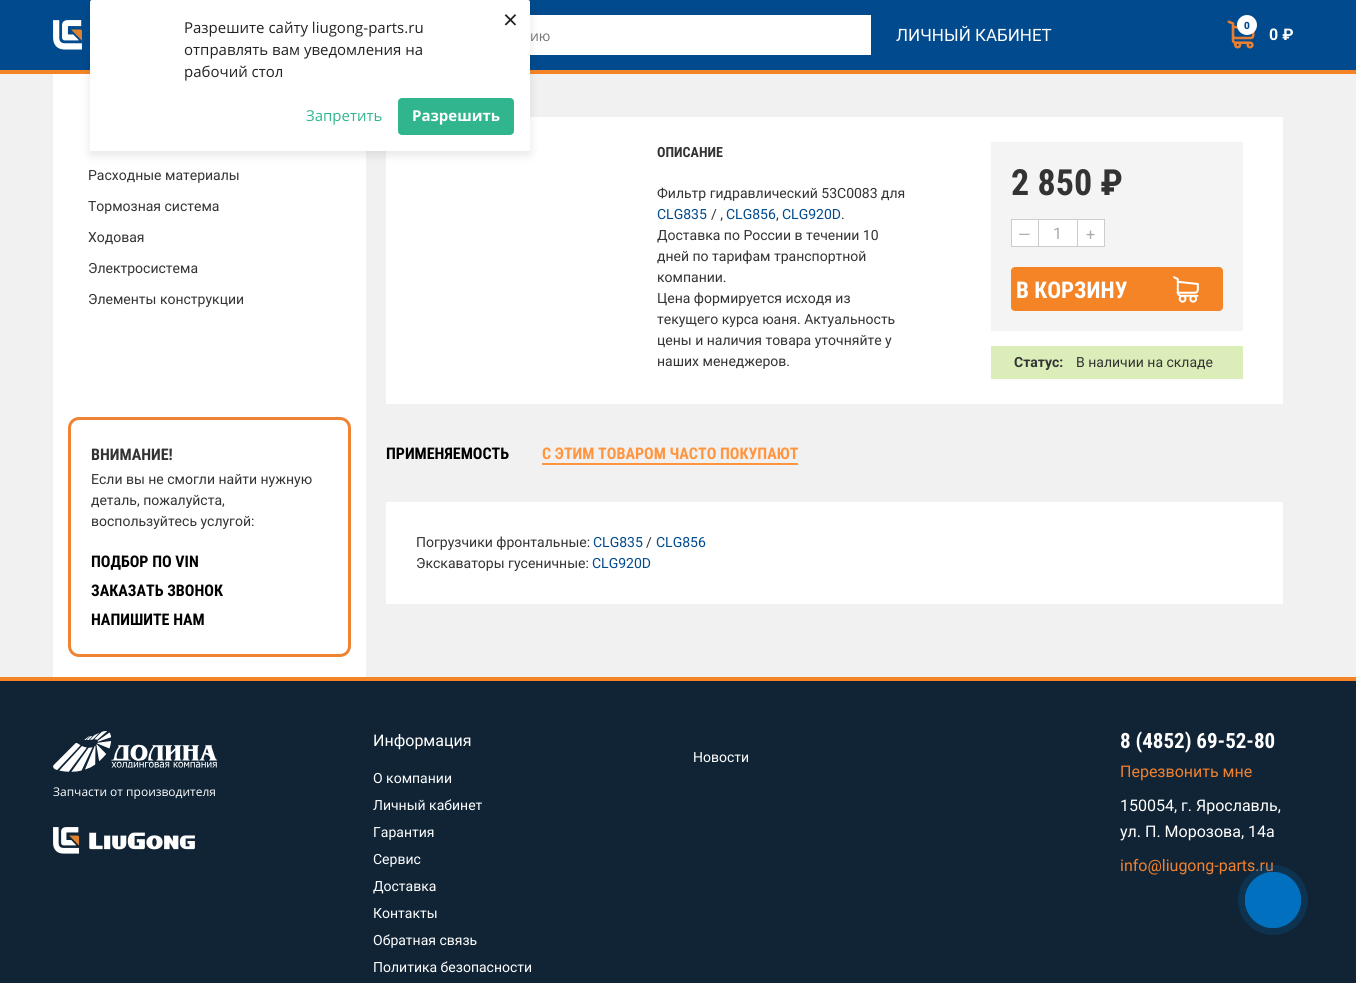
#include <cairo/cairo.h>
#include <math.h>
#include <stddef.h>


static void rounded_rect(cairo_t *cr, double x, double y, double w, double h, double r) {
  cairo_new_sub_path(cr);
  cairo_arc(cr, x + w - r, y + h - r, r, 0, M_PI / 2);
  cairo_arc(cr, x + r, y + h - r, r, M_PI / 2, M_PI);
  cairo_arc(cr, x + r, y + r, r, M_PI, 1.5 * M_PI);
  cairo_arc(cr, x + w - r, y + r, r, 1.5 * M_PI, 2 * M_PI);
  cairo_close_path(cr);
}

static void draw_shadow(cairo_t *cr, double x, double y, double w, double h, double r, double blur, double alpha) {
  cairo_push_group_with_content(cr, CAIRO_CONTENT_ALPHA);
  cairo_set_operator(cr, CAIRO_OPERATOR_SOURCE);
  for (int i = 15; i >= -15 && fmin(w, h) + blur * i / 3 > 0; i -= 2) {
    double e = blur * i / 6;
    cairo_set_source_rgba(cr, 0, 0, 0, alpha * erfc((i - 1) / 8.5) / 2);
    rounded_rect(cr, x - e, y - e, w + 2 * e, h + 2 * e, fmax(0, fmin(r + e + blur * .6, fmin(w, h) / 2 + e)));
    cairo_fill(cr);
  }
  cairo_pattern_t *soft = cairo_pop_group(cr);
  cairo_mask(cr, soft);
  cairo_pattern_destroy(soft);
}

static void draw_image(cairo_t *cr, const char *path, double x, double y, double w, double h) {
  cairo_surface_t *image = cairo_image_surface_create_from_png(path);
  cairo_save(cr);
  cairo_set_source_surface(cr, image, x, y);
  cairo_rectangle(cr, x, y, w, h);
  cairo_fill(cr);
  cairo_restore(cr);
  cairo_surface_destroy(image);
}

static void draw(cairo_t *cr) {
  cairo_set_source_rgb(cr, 241 / 255.0, 241 / 255.0, 241 / 255.0);
  cairo_paint(cr);
  cairo_set_source_rgb(cr, 0, 74 / 255.0, 141 / 255.0);
  cairo_rectangle(cr, 0, 0, 1356, 70);
  cairo_fill(cr);
  cairo_set_source_rgb(cr, 245 / 255.0, 132 / 255.0, 38 / 255.0);
  cairo_rectangle(cr, 0, 70, 1356, 4);
  cairo_fill(cr);
  draw_image(cr, "images/1.png", 53, 20, 29, 30);
  cairo_set_source_rgb(cr, 1, 1, 1);
  cairo_rectangle(cr, 530, 15, 341, 40);
  cairo_fill(cr);
  cairo_rectangle(cr, 53, 74, 313, 603);
  cairo_fill(cr);
  cairo_rectangle(cr, 386, 117, 897, 287);
  cairo_fill(cr);
  cairo_set_source_rgb(cr, 0, 0, 0);
  draw_shadow(cr, 90, 4, 440, 151, 2, 5, 0.1);
  cairo_set_source_rgb(cr, 1, 1, 1);
  rounded_rect(cr, 90, 0, 440, 151, 2);
  cairo_fill(cr);
  cairo_set_source_rgb(cr, 49 / 255.0, 181 / 255.0, 142 / 255.0);
  rounded_rect(cr, 398, 98, 116, 37, 4);
  cairo_fill(cr);
  draw_image(cr, "images/2.png", 1227, 20, 28, 29);
  cairo_set_source_rgb(cr, 1, 1, 1);
  cairo_arc(cr, 1247, 25, 10, 0, 2 * M_PI);
  cairo_fill(cr);
  rounded_rect(cr, 69.5, 418.5, 280, 237, 9.5);
  cairo_set_source_rgb(cr, 239 / 255.0, 131 / 255.0, 51 / 255.0);
  cairo_set_line_width(cr, 3);
  cairo_stroke(cr);
  cairo_set_source_rgb(cr, 244 / 255.0, 244 / 255.0, 244 / 255.0);
  cairo_rectangle(cr, 991, 142, 252, 189);
  cairo_fill(cr);
  cairo_set_source_rgb(cr, 1, 1, 1);
  cairo_rectangle(cr, 1011.5, 219.5, 27, 27);
  cairo_fill_preserve(cr);
  cairo_set_source_rgb(cr, 204 / 255.0, 204 / 255.0, 204 / 255.0);
  cairo_set_line_width(cr, 1);
  cairo_stroke(cr);
  cairo_set_source_rgb(cr, 1, 1, 1);
  cairo_rectangle(cr, 1039, 220, 38, 26);
  cairo_fill(cr);
  cairo_set_source_rgb(cr, 204 / 255.0, 204 / 255.0, 204 / 255.0);
  cairo_rectangle(cr, 1039, 219, 38, 1);
  cairo_fill(cr);
  cairo_rectangle(cr, 1039, 246, 38, 1);
  cairo_fill(cr);
  cairo_set_source_rgb(cr, 1, 1, 1);
  cairo_rectangle(cr, 1077.5, 219.5, 27, 27);
  cairo_fill_preserve(cr);
  cairo_set_source_rgb(cr, 204 / 255.0, 204 / 255.0, 204 / 255.0);
  cairo_stroke(cr);
  cairo_set_source_rgb(cr, 245 / 255.0, 132 / 255.0, 38 / 255.0);
  rounded_rect(cr, 1011, 267, 212, 44, 4);
  cairo_fill(cr);
  draw_image(cr, "images/3.png", 1173, 276, 26, 27);
  cairo_set_source_rgb(cr, 219 / 255.0, 238 / 255.0, 185 / 255.0);
  cairo_rectangle(cr, 991, 346, 252, 33);
  cairo_fill(cr);
  cairo_set_source_rgb(cr, 1, 149 / 255.0, 62 / 255.0);
  cairo_rectangle(cr, 542, 463, 256, 2);
  cairo_fill(cr);
  cairo_set_source_rgb(cr, 1, 1, 1);
  cairo_rectangle(cr, 386, 502, 897, 102);
  cairo_fill(cr);
  cairo_set_source_rgb(cr, 16 / 255.0, 36 / 255.0, 54 / 255.0);
  cairo_rectangle(cr, 0, 681, 1356, 302);
  cairo_fill(cr);
  cairo_set_source_rgb(cr, 245 / 255.0, 132 / 255.0, 38 / 255.0);
  cairo_rectangle(cr, 0, 677, 1356, 4);
  cairo_fill(cr);
  draw_image(cr, "images/4.png", 53, 731, 164, 41);
  draw_image(cr, "images/5.png", 53, 827, 142, 27);
  cairo_select_font_face(cr, "Open Sans", CAIRO_FONT_SLANT_NORMAL, CAIRO_FONT_WEIGHT_NORMAL);
  cairo_set_font_size(cr, 15);
  cairo_set_source_rgb(cr, 34 / 255.0, 34 / 255.0, 34 / 255.0);
  cairo_move_to(cr, 184, 33);
  cairo_show_text(cr, "Разрешите сайту liugong-parts.ru");
  cairo_move_to(cr, 184, 55);
  cairo_show_text(cr, "отправлять вам уведомления на");
  cairo_move_to(cr, 184, 77);
  cairo_show_text(cr, "рабочий стол");
  cairo_set_source_rgb(cr, 49 / 255.0, 181 / 255.0, 142 / 255.0);
  cairo_move_to(cr, 306, 121);
  cairo_show_text(cr, "Запретить");
  cairo_select_font_face(cr, "Open Sans", CAIRO_FONT_SLANT_NORMAL, CAIRO_FONT_WEIGHT_BOLD);
  cairo_set_source_rgb(cr, 1, 1, 1);
  cairo_move_to(cr, 412, 121);
  cairo_show_text(cr, "Разрешить");
  cairo_select_font_face(cr, "Open Sans", CAIRO_FONT_SLANT_NORMAL, CAIRO_FONT_WEIGHT_NORMAL);
  cairo_set_font_size(cr, 26);
  cairo_set_source_rgb(cr, 34 / 255.0, 34 / 255.0, 34 / 255.0);
  cairo_move_to(cr, 503, 29);
  cairo_show_text(cr, "×");
  cairo_set_font_size(cr, 14);
  cairo_set_source_rgb(cr, 117 / 255.0, 117 / 255.0, 117 / 255.0);
  cairo_move_to(cr, 530, 41);
  cairo_show_text(cr, "ию");
  cairo_select_font_face(cr, "Roboto", CAIRO_FONT_SLANT_NORMAL, CAIRO_FONT_WEIGHT_NORMAL);
  cairo_set_font_size(cr, 17);
  cairo_set_source_rgb(cr, 1, 1, 1);
  cairo_move_to(cr, 896, 41);
  cairo_show_text(cr, "ЛИЧНЫЙ КАБИНЕТ");
  cairo_select_font_face(cr, "Roboto Black", CAIRO_FONT_SLANT_NORMAL, CAIRO_FONT_WEIGHT_NORMAL);
  cairo_set_font_size(cr, 10);
  cairo_set_source_rgb(cr, 0, 74 / 255.0, 141 / 255.0);
  cairo_move_to(cr, 1244, 29);
  cairo_show_text(cr, "0");
  cairo_select_font_face(cr, "Roboto", CAIRO_FONT_SLANT_NORMAL, CAIRO_FONT_WEIGHT_BOLD);
  cairo_set_font_size(cr, 16);
  cairo_set_source_rgb(cr, 1, 1, 1);
  cairo_move_to(cr, 1269, 40);
  cairo_show_text(cr, "0 ₽");
  cairo_select_font_face(cr, "Roboto", CAIRO_FONT_SLANT_NORMAL, CAIRO_FONT_WEIGHT_NORMAL);
  cairo_set_font_size(cr, 14);
  cairo_set_source_rgb(cr, 51 / 255.0, 51 / 255.0, 51 / 255.0);
  cairo_move_to(cr, 88, 180);
  cairo_show_text(cr, "Расходные материалы");
  cairo_move_to(cr, 88, 211);
  cairo_show_text(cr, "Тормозная система");
  cairo_move_to(cr, 88, 242);
  cairo_show_text(cr, "Ходовая");
  cairo_move_to(cr, 88, 273);
  cairo_show_text(cr, "Электросистема");
  cairo_move_to(cr, 88, 304);
  cairo_show_text(cr, "Элементы конструкции");
  cairo_select_font_face(cr, "Roboto Condensed", CAIRO_FONT_SLANT_NORMAL, CAIRO_FONT_WEIGHT_BOLD);
  cairo_set_font_size(cr, 16);
  cairo_move_to(cr, 91, 460);
  cairo_show_text(cr, "ВНИМАНИЕ!");
  cairo_select_font_face(cr, "Roboto", CAIRO_FONT_SLANT_NORMAL, CAIRO_FONT_WEIGHT_NORMAL);
  cairo_set_font_size(cr, 14);
  cairo_move_to(cr, 91, 484);
  cairo_show_text(cr, "Если вы не смогли найти нужную");
  cairo_move_to(cr, 91, 505);
  cairo_show_text(cr, "деталь, пожалуйста,");
  cairo_move_to(cr, 91, 526);
  cairo_show_text(cr, "воспользуйтесь услугой:");
  cairo_select_font_face(cr, "Roboto Condensed", CAIRO_FONT_SLANT_NORMAL, CAIRO_FONT_WEIGHT_BOLD);
  cairo_set_font_size(cr, 16);
  cairo_set_source_rgb(cr, 0, 0, 0);
  cairo_move_to(cr, 91, 567);
  cairo_show_text(cr, "ПОДБОР ПО VIN");
  cairo_move_to(cr, 91, 596);
  cairo_show_text(cr, "ЗАКАЗАТЬ ЗВОНОК");
  cairo_move_to(cr, 91, 625);
  cairo_show_text(cr, "НАПИШИТЕ НАМ");
  cairo_set_font_size(cr, 14);
  cairo_set_source_rgb(cr, 51 / 255.0, 51 / 255.0, 51 / 255.0);
  cairo_move_to(cr, 657, 157);
  cairo_show_text(cr, "ОПИСАНИЕ");
  cairo_select_font_face(cr, "Roboto", CAIRO_FONT_SLANT_NORMAL, CAIRO_FONT_WEIGHT_NORMAL);
  cairo_move_to(cr, 657, 198);
  cairo_show_text(cr, "Фильтр гидравлический 53C0083 для");
  cairo_set_source_rgb(cr, 0, 74 / 255.0, 141 / 255.0);
  cairo_move_to(cr, 657, 219);
  cairo_show_text(cr, "CLG835");
  cairo_set_source_rgb(cr, 51 / 255.0, 51 / 255.0, 51 / 255.0);
  cairo_move_to(cr, 711, 219);
  cairo_show_text(cr, "/ ,");
  cairo_set_source_rgb(cr, 0, 74 / 255.0, 141 / 255.0);
  cairo_move_to(cr, 726, 219);
  cairo_show_text(cr, "CLG856");
  cairo_set_source_rgb(cr, 51 / 255.0, 51 / 255.0, 51 / 255.0);
  cairo_move_to(cr, 776, 219);
  cairo_show_text(cr, ",");
  cairo_set_source_rgb(cr, 0, 74 / 255.0, 141 / 255.0);
  cairo_move_to(cr, 782, 219);
  cairo_show_text(cr, "CLG920D");
  cairo_set_source_rgb(cr, 51 / 255.0, 51 / 255.0, 51 / 255.0);
  cairo_move_to(cr, 841, 219);
  cairo_show_text(cr, ".");
  cairo_move_to(cr, 657, 240);
  cairo_show_text(cr, "Доставка по России в течении 10");
  cairo_move_to(cr, 657, 261);
  cairo_show_text(cr, "дней по тарифам транспортной");
  cairo_move_to(cr, 657, 282);
  cairo_show_text(cr, "компании.");
  cairo_move_to(cr, 657, 303);
  cairo_show_text(cr, "Цена формируется исходя из");
  cairo_move_to(cr, 657, 324);
  cairo_show_text(cr, "текущего курса юаня. Актуальность");
  cairo_move_to(cr, 657, 345);
  cairo_show_text(cr, "цены и наличия товара уточняйте у");
  cairo_move_to(cr, 657, 366);
  cairo_show_text(cr, "наших менеджеров.");
  cairo_select_font_face(cr, "Roboto Condensed", CAIRO_FONT_SLANT_NORMAL, CAIRO_FONT_WEIGHT_BOLD);
  cairo_set_font_size(cr, 36);
  cairo_move_to(cr, 1011, 195);
  cairo_show_text(cr, "2 850 ₽");
  cairo_select_font_face(cr, "Roboto", CAIRO_FONT_SLANT_NORMAL, CAIRO_FONT_WEIGHT_NORMAL);
  cairo_set_font_size(cr, 16);
  cairo_set_source_rgb(cr, 170 / 255.0, 170 / 255.0, 170 / 255.0);
  cairo_move_to(cr, 1018, 240);
  cairo_show_text(cr, "—");
  cairo_move_to(cr, 1053, 239);
  cairo_show_text(cr, "1");
  cairo_move_to(cr, 1086, 240);
  cairo_show_text(cr, "+");
  cairo_select_font_face(cr, "Roboto Condensed", CAIRO_FONT_SLANT_NORMAL, CAIRO_FONT_WEIGHT_BOLD);
  cairo_set_font_size(cr, 23);
  cairo_set_source_rgb(cr, 1, 1, 1);
  cairo_move_to(cr, 1016, 298);
  cairo_show_text(cr, "В КОРЗИНУ");
  cairo_select_font_face(cr, "Roboto", CAIRO_FONT_SLANT_NORMAL, CAIRO_FONT_WEIGHT_BOLD);
  cairo_set_font_size(cr, 14);
  cairo_set_source_rgb(cr, 51 / 255.0, 51 / 255.0, 51 / 255.0);
  cairo_move_to(cr, 1014, 367);
  cairo_show_text(cr, "Статус:");
  cairo_select_font_face(cr, "Roboto", CAIRO_FONT_SLANT_NORMAL, CAIRO_FONT_WEIGHT_NORMAL);
  cairo_move_to(cr, 1076, 367);
  cairo_show_text(cr, "В наличии на складе");
  cairo_select_font_face(cr, "Roboto Condensed", CAIRO_FONT_SLANT_NORMAL, CAIRO_FONT_WEIGHT_BOLD);
  cairo_set_font_size(cr, 16);
  cairo_set_source_rgb(cr, 0, 0, 0);
  cairo_move_to(cr, 386, 459);
  cairo_show_text(cr, "ПРИМЕНЯЕМОСТЬ");
  cairo_set_source_rgb(cr, 1, 149 / 255.0, 62 / 255.0);
  cairo_move_to(cr, 542, 459);
  cairo_show_text(cr, "С ЭТИМ ТОВАРОМ ЧАСТО ПОКУПАЮТ");
  cairo_select_font_face(cr, "Roboto", CAIRO_FONT_SLANT_NORMAL, CAIRO_FONT_WEIGHT_NORMAL);
  cairo_set_font_size(cr, 14);
  cairo_set_source_rgb(cr, 51 / 255.0, 51 / 255.0, 51 / 255.0);
  cairo_move_to(cr, 416, 547);
  cairo_show_text(cr, "Погрузчики фронтальные:");
  cairo_set_source_rgb(cr, 0, 74 / 255.0, 141 / 255.0);
  cairo_move_to(cr, 593, 547);
  cairo_show_text(cr, "CLG835");
  cairo_set_source_rgb(cr, 51 / 255.0, 51 / 255.0, 51 / 255.0);
  cairo_move_to(cr, 646, 547);
  cairo_show_text(cr, "/");
  cairo_set_source_rgb(cr, 0, 74 / 255.0, 141 / 255.0);
  cairo_move_to(cr, 656, 547);
  cairo_show_text(cr, "CLG856");
  cairo_set_source_rgb(cr, 51 / 255.0, 51 / 255.0, 51 / 255.0);
  cairo_move_to(cr, 416, 568);
  cairo_show_text(cr, "Экскаваторы гусеничные:");
  cairo_set_source_rgb(cr, 0, 74 / 255.0, 141 / 255.0);
  cairo_move_to(cr, 592, 568);
  cairo_show_text(cr, "CLG920D");
  cairo_set_font_size(cr, 16);
  cairo_set_source_rgb(cr, 1, 1, 1);
  cairo_move_to(cr, 373, 746);
  cairo_show_text(cr, "Информация");
  cairo_set_font_size(cr, 14);
  cairo_move_to(cr, 373, 783);
  cairo_show_text(cr, "О компании");
  cairo_move_to(cr, 373, 810);
  cairo_show_text(cr, "Личный кабинет");
  cairo_move_to(cr, 373, 837);
  cairo_show_text(cr, "Гарантия");
  cairo_move_to(cr, 373, 864);
  cairo_show_text(cr, "Сервис");
  cairo_move_to(cr, 373, 891);
  cairo_show_text(cr, "Доставка");
  cairo_move_to(cr, 373, 918);
  cairo_show_text(cr, "Контакты");
  cairo_move_to(cr, 373, 945);
  cairo_show_text(cr, "Обратная связь");
  cairo_move_to(cr, 373, 972);
  cairo_show_text(cr, "Политика безопасности");
  cairo_move_to(cr, 693, 762);
  cairo_show_text(cr, "Новости");
  cairo_select_font_face(cr, "Roboto Condensed", CAIRO_FONT_SLANT_NORMAL, CAIRO_FONT_WEIGHT_BOLD);
  cairo_set_font_size(cr, 21);
  cairo_move_to(cr, 1120, 748);
  cairo_show_text(cr, "8 (4852) 69-52-80");
  cairo_select_font_face(cr, "Roboto", CAIRO_FONT_SLANT_NORMAL, CAIRO_FONT_WEIGHT_NORMAL);
  cairo_set_font_size(cr, 16);
  cairo_set_source_rgb(cr, 240 / 255.0, 129 / 255.0, 46 / 255.0);
  cairo_move_to(cr, 1120, 777);
  cairo_show_text(cr, "Перезвонить мне");
  cairo_set_source_rgb(cr, 1, 1, 1);
  cairo_move_to(cr, 1120, 811);
  cairo_show_text(cr, "150054, г. Ярославль,");
  cairo_move_to(cr, 1120, 837);
  cairo_show_text(cr, "ул. П. Морозова, 14а");
  cairo_set_source_rgb(cr, 240 / 255.0, 129 / 255.0, 46 / 255.0);
  cairo_move_to(cr, 1120, 871);
  cairo_show_text(cr, "info@liugong-parts.ru");
  cairo_select_font_face(cr, "Open Sans", CAIRO_FONT_SLANT_NORMAL, CAIRO_FONT_WEIGHT_NORMAL);
  cairo_set_font_size(cr, 12);
  cairo_set_source_rgb(cr, 1, 1, 1);
  cairo_move_to(cr, 53, 796);
  cairo_show_text(cr, "Запчасти от производителя");
  cairo_set_source_rgba(cr, 0, 112 / 255.0, 191 / 255.0, 0.2);
  cairo_new_path(cr);
  cairo_arc(cr, 1273, 900, 35, 0, 2 * M_PI);
  cairo_fill(cr);
  cairo_arc(cr, 1273, 900, 27.6, 0, 2 * M_PI);
  cairo_set_source_rgb(cr, 0, 112 / 255.0, 191 / 255.0);
  cairo_set_line_width(cr, 0.8);
  cairo_stroke(cr);
  cairo_arc(cr, 1273, 900, 28, 0, 2 * M_PI);
  cairo_fill(cr);
}

int main(void) {
  cairo_surface_t *surface = cairo_image_surface_create(CAIRO_FORMAT_RGB24, 1356, 983);
  cairo_t *cr = cairo_create(surface);
  cairo_font_options_t *options = cairo_font_options_create();
  cairo_font_options_set_hint_metrics(options, CAIRO_HINT_METRICS_OFF);
  cairo_font_options_set_hint_style(options, CAIRO_HINT_STYLE_NONE);
  cairo_set_font_options(cr, options);
  cairo_set_miter_limit(cr, 4);
  draw(cr);
  cairo_surface_write_to_png(surface, "out.png");
  cairo_font_options_destroy(options);
  cairo_destroy(cr);
  cairo_surface_destroy(surface);
  return 0;
}
